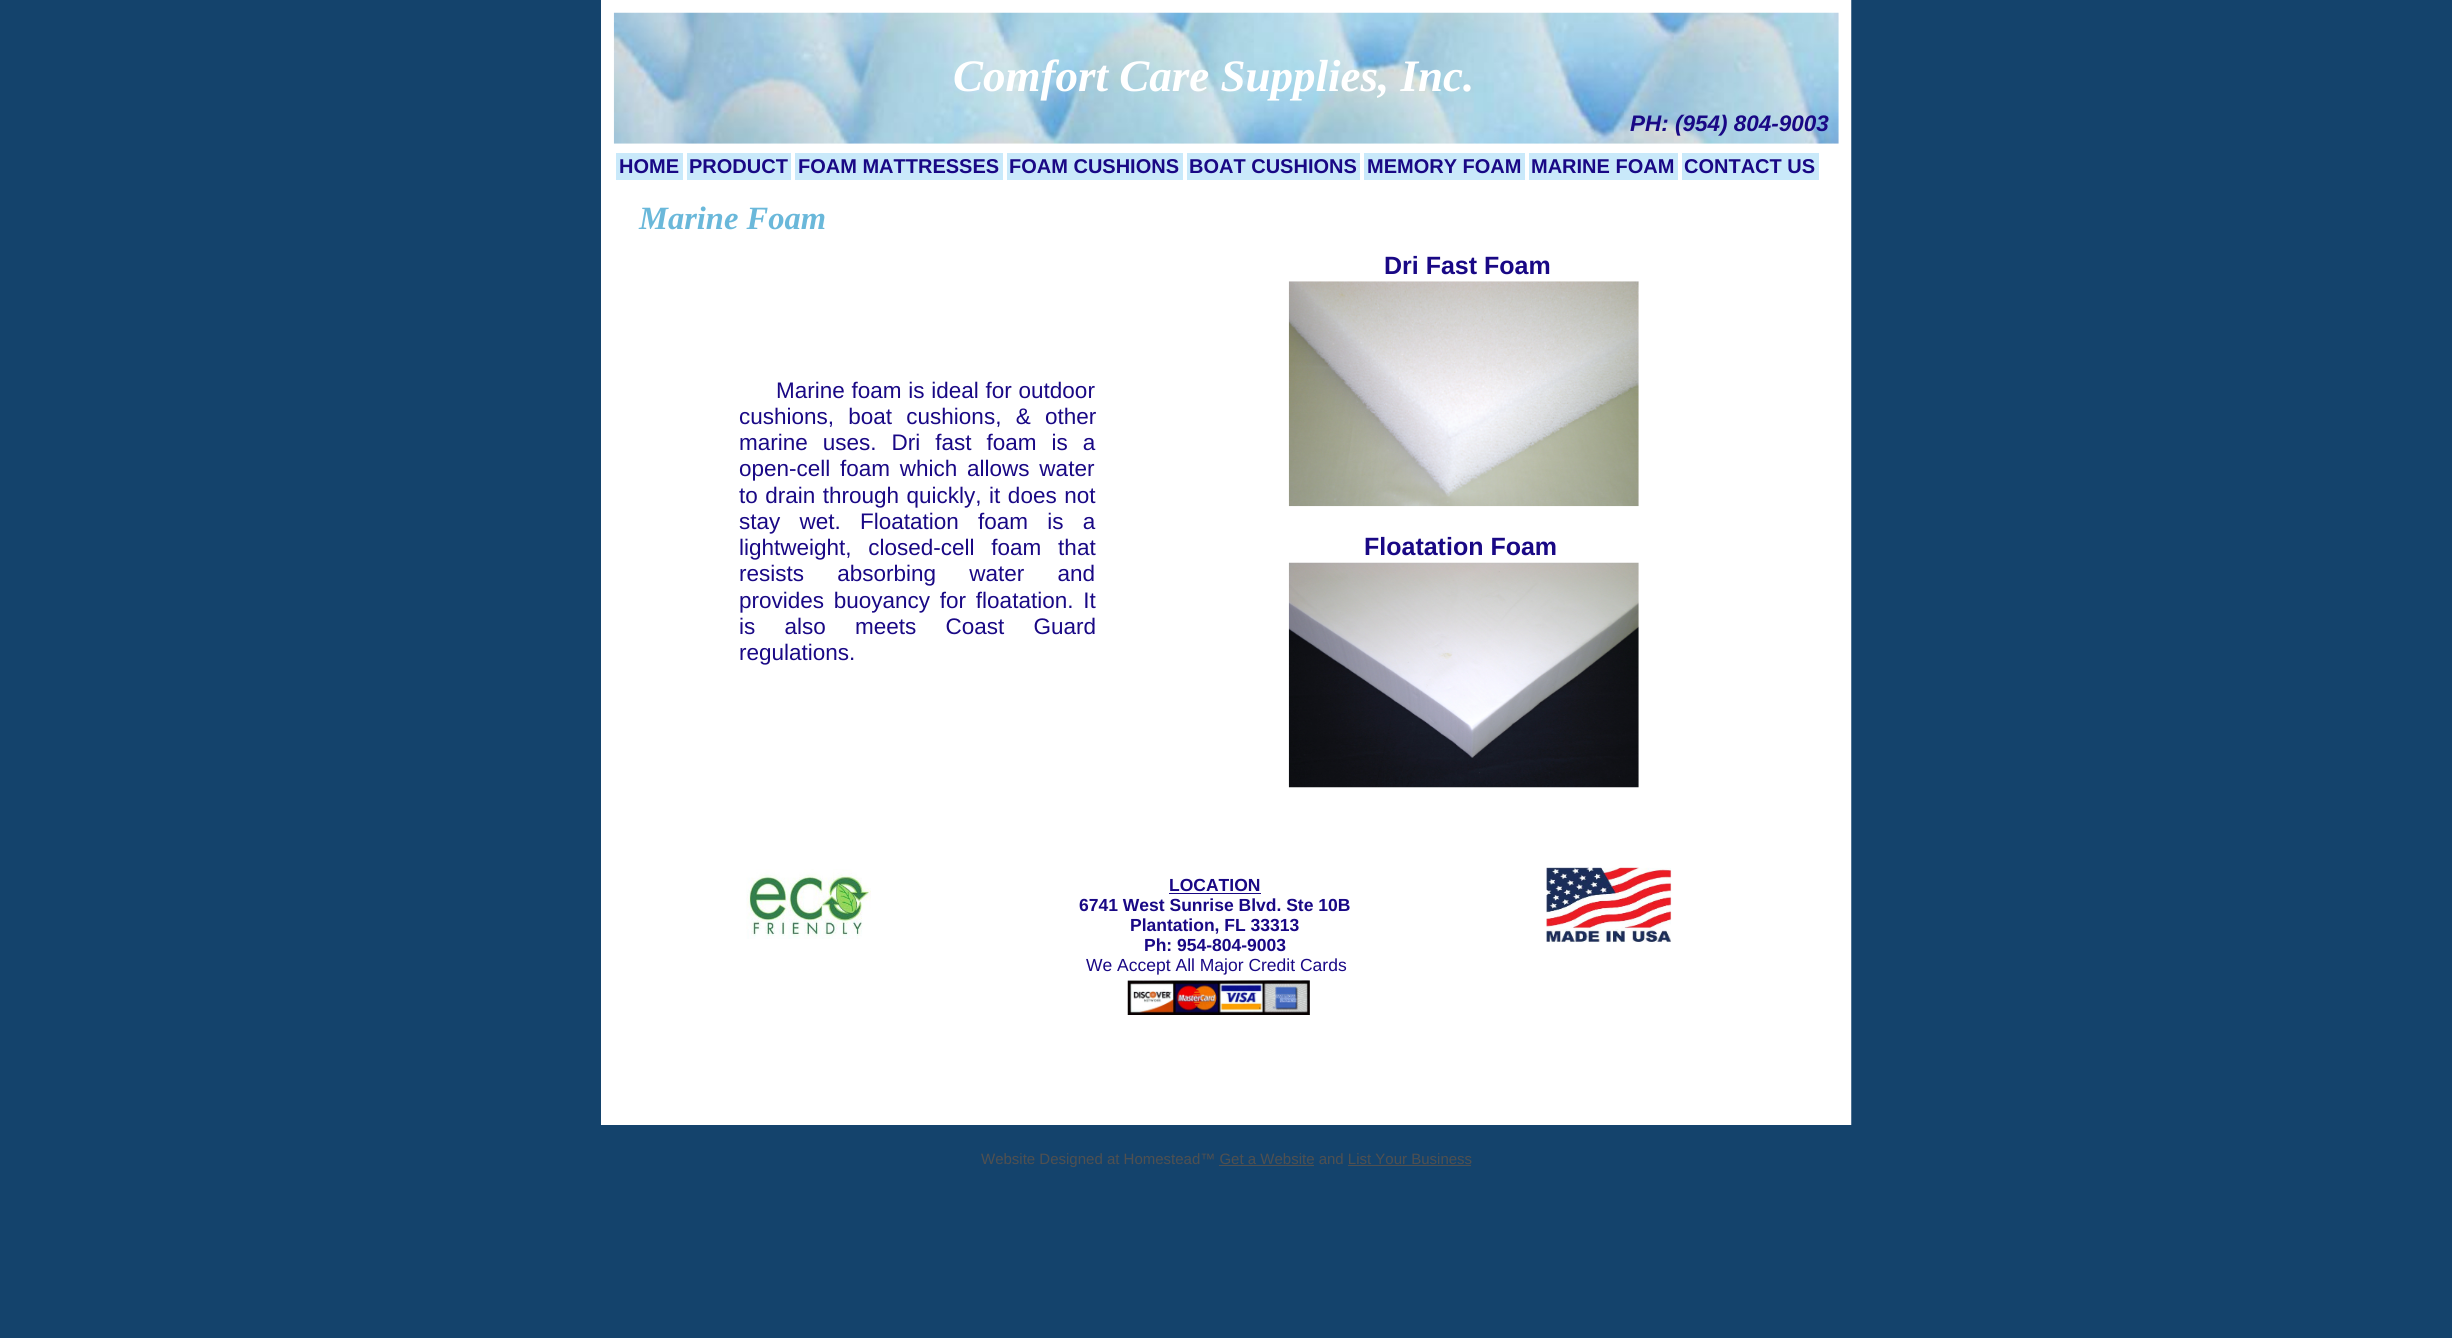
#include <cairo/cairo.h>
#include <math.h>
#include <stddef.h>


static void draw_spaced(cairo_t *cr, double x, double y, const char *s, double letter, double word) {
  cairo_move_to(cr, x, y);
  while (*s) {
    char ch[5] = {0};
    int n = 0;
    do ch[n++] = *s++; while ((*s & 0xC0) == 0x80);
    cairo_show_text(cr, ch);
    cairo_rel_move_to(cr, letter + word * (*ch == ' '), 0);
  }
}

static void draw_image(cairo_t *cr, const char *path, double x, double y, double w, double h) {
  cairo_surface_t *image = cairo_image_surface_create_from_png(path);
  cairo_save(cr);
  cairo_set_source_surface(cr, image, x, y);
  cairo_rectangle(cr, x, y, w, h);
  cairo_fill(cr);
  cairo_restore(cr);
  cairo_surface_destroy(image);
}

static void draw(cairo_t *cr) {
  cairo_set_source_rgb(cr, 20 / 255.0, 67 / 255.0, 108 / 255.0);
  cairo_paint(cr);
  cairo_set_source_rgb(cr, 1, 1, 1);
  cairo_rectangle(cr, 601, 0, 1250, 1125);
  cairo_fill(cr);
  cairo_set_source_rgb(cr, 79 / 255.0, 114 / 255.0, 145 / 255.0);
  cairo_rectangle(cr, 1851, 0, 1, 1125);
  cairo_fill(cr);
  draw_image(cr, "images/1.png", 613, 12, 1226, 132);
  cairo_set_source_rgb(cr, 201 / 255.0, 233 / 255.0, 250 / 255.0);
  cairo_rectangle(cr, 616, 153, 1203, 27);
  cairo_fill(cr);
  cairo_set_source_rgb(cr, 1, 1, 1);
  cairo_rectangle(cr, 683, 153, 4, 27);
  cairo_fill(cr);
  cairo_rectangle(cr, 791, 153, 4, 27);
  cairo_fill(cr);
  cairo_rectangle(cr, 1003, 153, 4, 27);
  cairo_fill(cr);
  cairo_rectangle(cr, 1183, 153, 4, 27);
  cairo_fill(cr);
  cairo_rectangle(cr, 1360, 153, 4, 27);
  cairo_fill(cr);
  cairo_rectangle(cr, 1525, 153, 4, 27);
  cairo_fill(cr);
  cairo_rectangle(cr, 1678, 153, 4, 27);
  cairo_fill(cr);
  draw_image(cr, "images/2.png", 1288, 281, 351, 226);
  draw_image(cr, "images/3.png", 1288, 562, 351, 226);
  draw_image(cr, "images/4.png", 746, 869, 125, 70);
  cairo_set_source_rgb(cr, 25 / 255.0, 8 / 255.0, 133 / 255.0);
  cairo_rectangle(cr, 1169, 893, 92, 1);
  cairo_fill(cr);
  draw_image(cr, "images/5.png", 1546, 867, 126, 76);
  draw_image(cr, "images/6.png", 1127, 980, 183, 35);
  cairo_set_source_rgb(cr, 80 / 255.0, 80 / 255.0, 80 / 255.0);
  cairo_rectangle(cr, 1219, 1165, 95, 1);
  cairo_fill(cr);
  cairo_rectangle(cr, 1348, 1165, 123, 1);
  cairo_fill(cr);
  cairo_select_font_face(cr, "Liberation Serif", CAIRO_FONT_SLANT_ITALIC, CAIRO_FONT_WEIGHT_BOLD);
  cairo_set_font_size(cr, 45);
  cairo_set_source_rgb(cr, 1, 1, 1);
  cairo_move_to(cr, 953, 91);
  cairo_show_text(cr, "Comfort Care Supplies, Inc.");
  cairo_select_font_face(cr, "Liberation Sans", CAIRO_FONT_SLANT_ITALIC, CAIRO_FONT_WEIGHT_BOLD);
  cairo_set_font_size(cr, 22.5);
  cairo_set_source_rgb(cr, 25 / 255.0, 8 / 255.0, 133 / 255.0);
  cairo_move_to(cr, 1630, 131);
  cairo_show_text(cr, "PH: (954) 804-9003");
  cairo_select_font_face(cr, "Liberation Sans", CAIRO_FONT_SLANT_NORMAL, CAIRO_FONT_WEIGHT_BOLD);
  cairo_set_font_size(cr, 20);
  cairo_move_to(cr, 619, 173);
  cairo_show_text(cr, "HOME");
  cairo_move_to(cr, 689, 173);
  cairo_show_text(cr, "PRODUCT");
  cairo_move_to(cr, 798, 173);
  cairo_show_text(cr, "FOAM MATTRESSES");
  cairo_move_to(cr, 1009, 173);
  cairo_show_text(cr, "FOAM CUSHIONS");
  cairo_move_to(cr, 1189, 173);
  cairo_show_text(cr, "BOAT CUSHIONS");
  cairo_move_to(cr, 1367, 173);
  cairo_show_text(cr, "MEMORY FOAM");
  cairo_move_to(cr, 1531, 173);
  cairo_show_text(cr, "MARINE FOAM");
  cairo_move_to(cr, 1684, 173);
  cairo_show_text(cr, "CONTACT US");
  cairo_select_font_face(cr, "Liberation Serif", CAIRO_FONT_SLANT_ITALIC, CAIRO_FONT_WEIGHT_BOLD);
  cairo_set_font_size(cr, 32.5);
  cairo_set_source_rgb(cr, 106 / 255.0, 184 / 255.0, 218 / 255.0);
  cairo_move_to(cr, 639, 229);
  cairo_show_text(cr, "Marine Foam");
  cairo_select_font_face(cr, "Liberation Sans", CAIRO_FONT_SLANT_NORMAL, CAIRO_FONT_WEIGHT_BOLD);
  cairo_set_font_size(cr, 25);
  cairo_set_source_rgb(cr, 25 / 255.0, 8 / 255.0, 133 / 255.0);
  cairo_move_to(cr, 1384, 274);
  cairo_show_text(cr, "Dri Fast Foam");
  cairo_select_font_face(cr, "Liberation Sans", CAIRO_FONT_SLANT_NORMAL, CAIRO_FONT_WEIGHT_NORMAL);
  cairo_set_font_size(cr, 22.5);
  draw_spaced(cr, 776, 398, "Marine foam is ideal for outdoor", 0, 0.5);
  draw_spaced(cr, 739, 424, "cushions, boat cushions, & other", 0, 8);
  draw_spaced(cr, 739, 450, "marine uses. Dri fast foam is a", 0, 8.75);
  draw_spaced(cr, 739, 476, "open-cell foam which allows water", 0, 3.5);
  draw_spaced(cr, 739, 503, "to drain through quickly, it does not", 0, 1.25);
  draw_spaced(cr, 739, 529, "stay wet. Floatation foam is a", 0, 13);
  draw_spaced(cr, 739, 555, "lightweight, closed-cell foam that", 0, 10.5);
  draw_spaced(cr, 739, 581, "resists absorbing water and", 0, 27);
  draw_spaced(cr, 739, 608, "provides buoyancy for floatation. It", 0, 3.5);
  draw_spaced(cr, 739, 634, "is also meets Coast Guard", 0, 23);
  cairo_move_to(cr, 739, 660);
  cairo_show_text(cr, "regulations.");
  cairo_select_font_face(cr, "Liberation Sans", CAIRO_FONT_SLANT_NORMAL, CAIRO_FONT_WEIGHT_BOLD);
  cairo_set_font_size(cr, 25);
  cairo_move_to(cr, 1364, 555);
  cairo_show_text(cr, "Floatation Foam");
  cairo_set_font_size(cr, 17.5);
  cairo_move_to(cr, 1169, 891);
  cairo_show_text(cr, "LOCATION");
  cairo_move_to(cr, 1079, 911);
  cairo_show_text(cr, "6741 West Sunrise Blvd. Ste 10B");
  cairo_move_to(cr, 1130, 931);
  cairo_show_text(cr, "Plantation, FL 33313");
  cairo_move_to(cr, 1144, 951);
  cairo_show_text(cr, "Ph: 954-804-9003");
  cairo_select_font_face(cr, "Liberation Sans", CAIRO_FONT_SLANT_NORMAL, CAIRO_FONT_WEIGHT_NORMAL);
  cairo_move_to(cr, 1086, 971);
  cairo_show_text(cr, "We Accept All Major Credit Cards");
  cairo_set_font_size(cr, 15);
  cairo_set_source_rgb(cr, 80 / 255.0, 80 / 255.0, 80 / 255.0);
  cairo_move_to(cr, 981, 1164);
  cairo_show_text(cr, "Website Designed at Homestead™ Get a Website and List Your Business");
}

int main(void) {
  cairo_surface_t *surface = cairo_image_surface_create(CAIRO_FORMAT_RGB24, 2452, 1338);
  cairo_t *cr = cairo_create(surface);
  cairo_font_options_t *options = cairo_font_options_create();
  cairo_font_options_set_hint_metrics(options, CAIRO_HINT_METRICS_OFF);
  cairo_font_options_set_hint_style(options, CAIRO_HINT_STYLE_NONE);
  cairo_set_font_options(cr, options);
  cairo_set_miter_limit(cr, 4);
  draw(cr);
  cairo_surface_write_to_png(surface, "out.png");
  cairo_font_options_destroy(options);
  cairo_destroy(cr);
  cairo_surface_destroy(surface);
  return 0;
}
